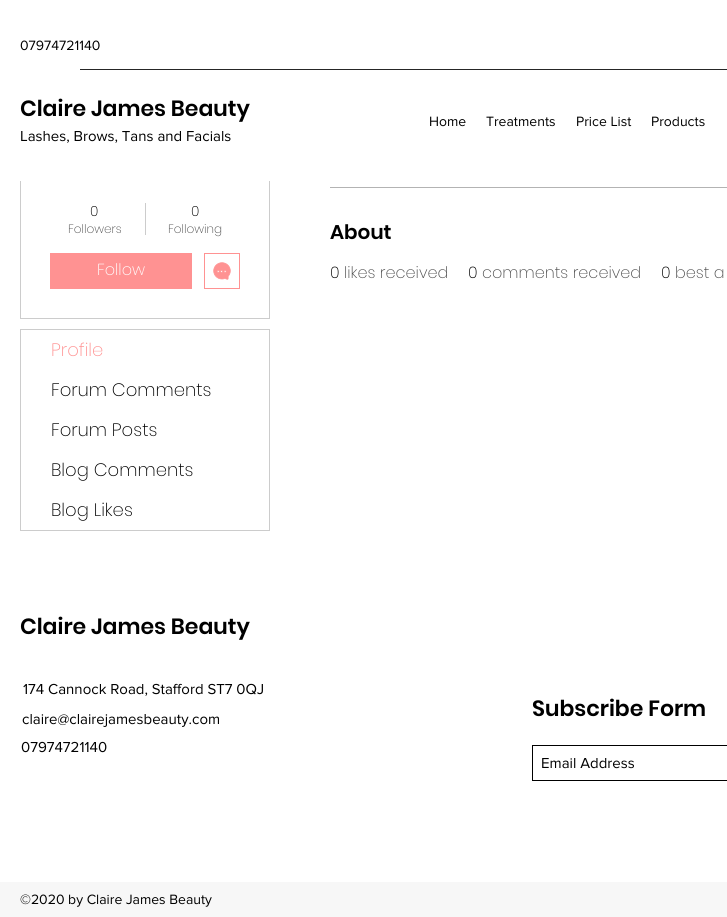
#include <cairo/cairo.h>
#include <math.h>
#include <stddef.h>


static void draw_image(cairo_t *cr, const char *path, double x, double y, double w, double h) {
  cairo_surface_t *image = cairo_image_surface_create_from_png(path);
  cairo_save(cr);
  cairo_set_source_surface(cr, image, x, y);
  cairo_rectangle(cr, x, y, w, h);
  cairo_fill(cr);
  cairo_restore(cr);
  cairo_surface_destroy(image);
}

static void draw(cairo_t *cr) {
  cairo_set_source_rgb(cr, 1, 1, 1);
  cairo_paint(cr);
  cairo_rectangle(cr, 20.5, 29.5, 249, 289);
  cairo_set_source_rgb(cr, 204 / 255.0, 204 / 255.0, 204 / 255.0);
  cairo_set_line_width(cr, 1);
  cairo_stroke(cr);
  cairo_set_source_rgb(cr, 1, 1, 1);
  cairo_rectangle(cr, 20, 29, 250, 152);
  cairo_fill(cr);
  cairo_set_source_rgb(cr, 38 / 255.0, 38 / 255.0, 38 / 255.0);
  cairo_rectangle(cr, 80, 69, 647, 1);
  cairo_fill(cr);
  cairo_set_source_rgb(cr, 204 / 255.0, 204 / 255.0, 204 / 255.0);
  cairo_rectangle(cr, 145, 203, 1, 32);
  cairo_fill(cr);
  cairo_set_source_rgb(cr, 1, 146 / 255.0, 146 / 255.0);
  cairo_rectangle(cr, 50, 253, 142, 36);
  cairo_fill(cr);
  cairo_rectangle(cr, 204.5, 253.5, 35, 35);
  cairo_stroke(cr);
  draw_image(cr, "images/1.png", 213, 262, 18, 18);
  cairo_rectangle(cr, 20.5, 329.5, 249, 201);
  cairo_set_source_rgb(cr, 204 / 255.0, 204 / 255.0, 204 / 255.0);
  cairo_stroke(cr);
  cairo_set_source_rgb(cr, 179 / 255.0, 179 / 255.0, 179 / 255.0);
  cairo_rectangle(cr, 330, 187, 397, 1);
  cairo_fill(cr);
  cairo_rectangle(cr, 532.5, 745.5, 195, 35);
  cairo_set_source_rgb(cr, 0, 0, 0);
  cairo_stroke(cr);
  cairo_set_source_rgb(cr, 247 / 255.0, 247 / 255.0, 247 / 255.0);
  cairo_rectangle(cr, 0, 882, 727, 35);
  cairo_fill(cr);
  cairo_select_font_face(cr, "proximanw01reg", CAIRO_FONT_SLANT_NORMAL, CAIRO_FONT_WEIGHT_NORMAL);
  cairo_set_font_size(cr, 14);
  cairo_set_source_rgb(cr, 0, 0, 0);
  cairo_move_to(cr, 20, 50);
  cairo_show_text(cr, "07974721140");
  cairo_select_font_face(cr, "Poppins SemiBold", CAIRO_FONT_SLANT_NORMAL, CAIRO_FONT_WEIGHT_NORMAL);
  cairo_set_font_size(cr, 22);
  cairo_move_to(cr, 20, 116);
  cairo_show_text(cr, "Claire James Beauty");
  cairo_select_font_face(cr, "proximanw01reg", CAIRO_FONT_SLANT_NORMAL, CAIRO_FONT_WEIGHT_NORMAL);
  cairo_set_font_size(cr, 15);
  cairo_move_to(cr, 20, 141);
  cairo_show_text(cr, "Lashes, Brows, Tans and Facials");
  cairo_set_font_size(cr, 14);
  cairo_move_to(cr, 429, 126);
  cairo_show_text(cr, "Home");
  cairo_move_to(cr, 486, 126);
  cairo_show_text(cr, "Treatments");
  cairo_move_to(cr, 576, 126);
  cairo_show_text(cr, "Price List");
  cairo_move_to(cr, 651, 126);
  cairo_show_text(cr, "Products");
  cairo_select_font_face(cr, "Poppins ExtraLight", CAIRO_FONT_SLANT_NORMAL, CAIRO_FONT_WEIGHT_NORMAL);
  cairo_move_to(cr, 90, 216);
  cairo_show_text(cr, "0");
  cairo_set_font_size(cr, 12);
  cairo_set_source_rgb(cr, 77 / 255.0, 77 / 255.0, 77 / 255.0);
  cairo_move_to(cr, 68, 233);
  cairo_show_text(cr, "Followers");
  cairo_set_font_size(cr, 14);
  cairo_set_source_rgb(cr, 0, 0, 0);
  cairo_move_to(cr, 191, 216);
  cairo_show_text(cr, "0");
  cairo_set_font_size(cr, 12);
  cairo_set_source_rgb(cr, 77 / 255.0, 77 / 255.0, 77 / 255.0);
  cairo_move_to(cr, 168, 233);
  cairo_show_text(cr, "Following");
  cairo_set_font_size(cr, 16);
  cairo_set_source_rgb(cr, 1, 1, 1);
  cairo_move_to(cr, 97, 275);
  cairo_show_text(cr, "Follow");
  cairo_set_font_size(cr, 18);
  cairo_set_source_rgb(cr, 1, 146 / 255.0, 146 / 255.0);
  cairo_move_to(cr, 51, 356);
  cairo_show_text(cr, "Profile");
  cairo_set_source_rgb(cr, 0, 0, 0);
  cairo_move_to(cr, 51, 396);
  cairo_show_text(cr, "Forum Comments");
  cairo_move_to(cr, 51, 436);
  cairo_show_text(cr, "Forum Posts");
  cairo_move_to(cr, 51, 476);
  cairo_show_text(cr, "Blog Comments");
  cairo_move_to(cr, 51, 516);
  cairo_show_text(cr, "Blog Likes");
  cairo_select_font_face(cr, "Poppins SemiBold", CAIRO_FONT_SLANT_NORMAL, CAIRO_FONT_WEIGHT_NORMAL);
  cairo_set_font_size(cr, 20);
  cairo_move_to(cr, 330, 239);
  cairo_show_text(cr, "About");
  cairo_select_font_face(cr, "Poppins ExtraLight", CAIRO_FONT_SLANT_NORMAL, CAIRO_FONT_WEIGHT_NORMAL);
  cairo_set_font_size(cr, 16);
  cairo_move_to(cr, 330, 278);
  cairo_show_text(cr, "0");
  cairo_set_source_rgb(cr, 77 / 255.0, 77 / 255.0, 77 / 255.0);
  cairo_move_to(cr, 344, 278);
  cairo_show_text(cr, "likes received");
  cairo_set_source_rgb(cr, 0, 0, 0);
  cairo_move_to(cr, 468, 278);
  cairo_show_text(cr, "0");
  cairo_set_source_rgb(cr, 77 / 255.0, 77 / 255.0, 77 / 255.0);
  cairo_move_to(cr, 482, 278);
  cairo_show_text(cr, "comments received");
  cairo_set_source_rgb(cr, 0, 0, 0);
  cairo_move_to(cr, 661, 278);
  cairo_show_text(cr, "0");
  cairo_set_source_rgb(cr, 77 / 255.0, 77 / 255.0, 77 / 255.0);
  cairo_move_to(cr, 675, 278);
  cairo_show_text(cr, "best a");
  cairo_select_font_face(cr, "Poppins SemiBold", CAIRO_FONT_SLANT_NORMAL, CAIRO_FONT_WEIGHT_NORMAL);
  cairo_set_font_size(cr, 22);
  cairo_set_source_rgb(cr, 0, 0, 0);
  cairo_move_to(cr, 20, 634);
  cairo_show_text(cr, "Claire James Beauty");
  cairo_select_font_face(cr, "proximanw01reg", CAIRO_FONT_SLANT_NORMAL, CAIRO_FONT_WEIGHT_NORMAL);
  cairo_set_font_size(cr, 15);
  cairo_move_to(cr, 23, 694);
  cairo_show_text(cr, "174 Cannock Road, Stafford ST7 0QJ");
  cairo_move_to(cr, 22, 724);
  cairo_show_text(cr, "claire@clairejamesbeauty.com");
  cairo_select_font_face(cr, "Poppins SemiBold", CAIRO_FONT_SLANT_NORMAL, CAIRO_FONT_WEIGHT_NORMAL);
  cairo_set_font_size(cr, 22);
  cairo_move_to(cr, 532, 716);
  cairo_show_text(cr, "Subscribe Form");
  cairo_select_font_face(cr, "proximanw01reg", CAIRO_FONT_SLANT_NORMAL, CAIRO_FONT_WEIGHT_NORMAL);
  cairo_set_font_size(cr, 15);
  cairo_move_to(cr, 541, 768);
  cairo_show_text(cr, "Email Address");
  cairo_move_to(cr, 21, 752);
  cairo_show_text(cr, "07974721140");
  cairo_set_font_size(cr, 14);
  cairo_move_to(cr, 20, 904);
  cairo_show_text(cr, "©2020 by Claire James Beauty");
}

int main(void) {
  cairo_surface_t *surface = cairo_image_surface_create(CAIRO_FORMAT_RGB24, 727, 917);
  cairo_t *cr = cairo_create(surface);
  cairo_font_options_t *options = cairo_font_options_create();
  cairo_font_options_set_hint_metrics(options, CAIRO_HINT_METRICS_OFF);
  cairo_font_options_set_hint_style(options, CAIRO_HINT_STYLE_NONE);
  cairo_set_font_options(cr, options);
  cairo_set_miter_limit(cr, 4);
  draw(cr);
  cairo_surface_write_to_png(surface, "out.png");
  cairo_font_options_destroy(options);
  cairo_destroy(cr);
  cairo_surface_destroy(surface);
  return 0;
}
